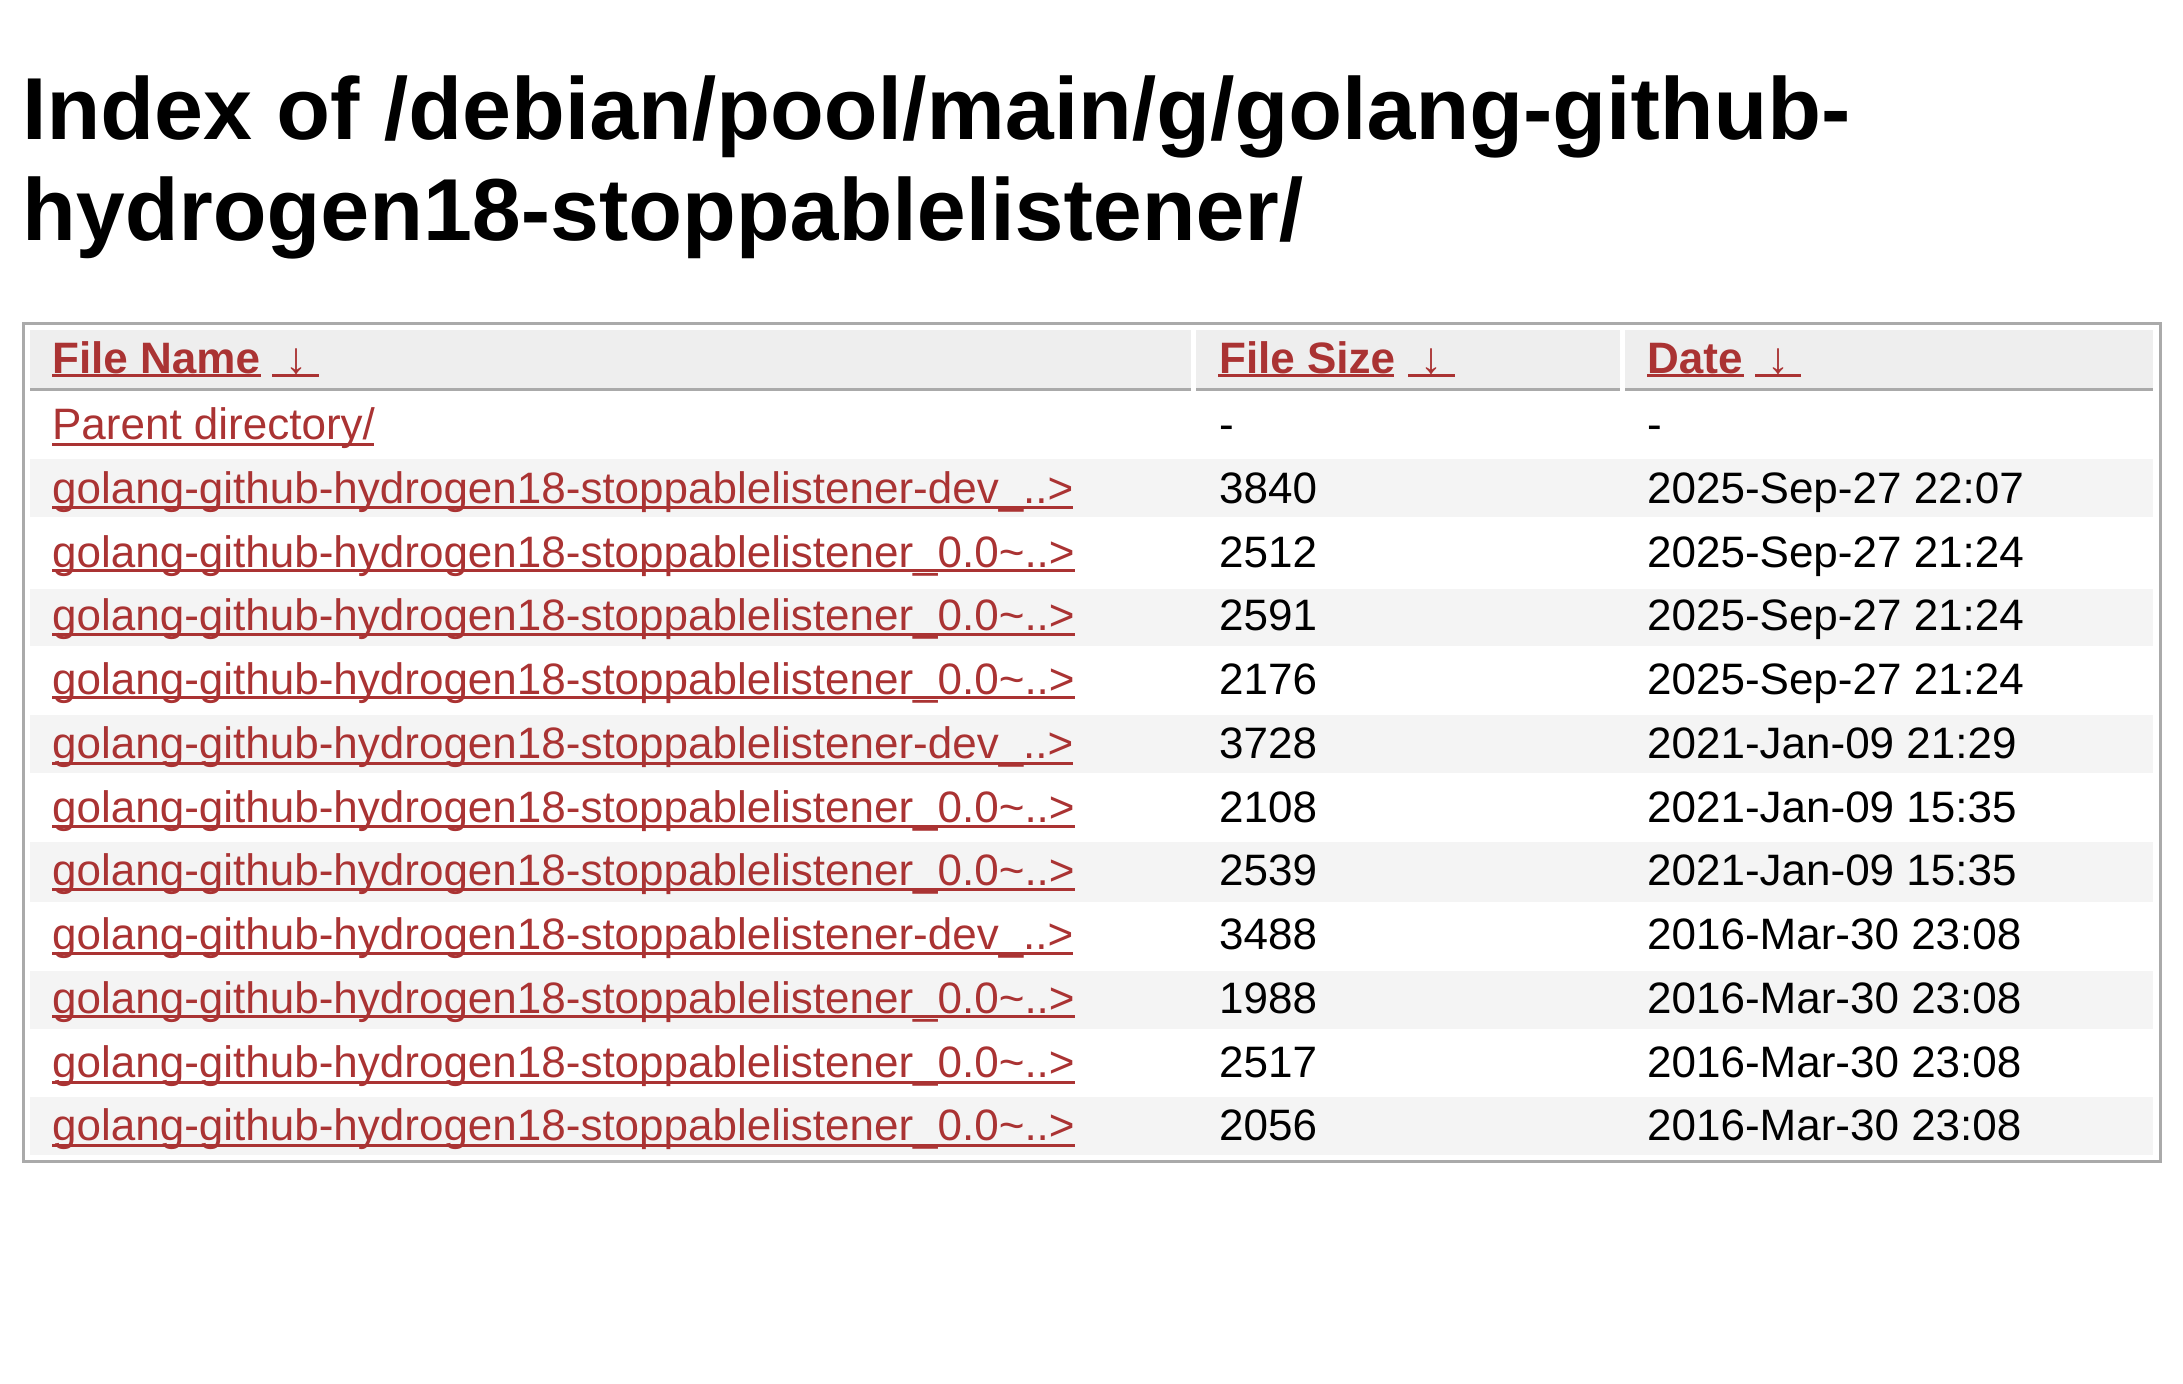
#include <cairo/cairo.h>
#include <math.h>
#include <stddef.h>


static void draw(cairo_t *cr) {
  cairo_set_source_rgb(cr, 1, 1, 1);
  cairo_paint(cr);
  cairo_rectangle(cr, 23.5, 323.5, 2137, 838);
  cairo_set_source_rgb(cr, 170 / 255.0, 170 / 255.0, 170 / 255.0);
  cairo_set_line_width(cr, 3);
  cairo_stroke(cr);
  cairo_set_source_rgb(cr, 238 / 255.0, 238 / 255.0, 238 / 255.0);
  cairo_rectangle(cr, 30, 330, 1161, 58);
  cairo_fill(cr);
  cairo_set_source_rgb(cr, 170 / 255.0, 170 / 255.0, 170 / 255.0);
  cairo_rectangle(cr, 30, 388, 1161, 3);
  cairo_fill(cr);
  cairo_set_source_rgb(cr, 170 / 255.0, 51 / 255.0, 51 / 255.0);
  cairo_rectangle(cr, 52, 374, 209, 3);
  cairo_fill(cr);
  cairo_rectangle(cr, 272, 374, 47, 3);
  cairo_fill(cr);
  cairo_set_source_rgb(cr, 238 / 255.0, 238 / 255.0, 238 / 255.0);
  cairo_rectangle(cr, 1196, 330, 424, 58);
  cairo_fill(cr);
  cairo_set_source_rgb(cr, 170 / 255.0, 170 / 255.0, 170 / 255.0);
  cairo_rectangle(cr, 1196, 388, 424, 3);
  cairo_fill(cr);
  cairo_set_source_rgb(cr, 170 / 255.0, 51 / 255.0, 51 / 255.0);
  cairo_rectangle(cr, 1218, 374, 176, 3);
  cairo_fill(cr);
  cairo_rectangle(cr, 1408, 374, 47, 3);
  cairo_fill(cr);
  cairo_set_source_rgb(cr, 238 / 255.0, 238 / 255.0, 238 / 255.0);
  cairo_rectangle(cr, 1625, 330, 528, 58);
  cairo_fill(cr);
  cairo_set_source_rgb(cr, 170 / 255.0, 170 / 255.0, 170 / 255.0);
  cairo_rectangle(cr, 1625, 388, 528, 3);
  cairo_fill(cr);
  cairo_set_source_rgb(cr, 170 / 255.0, 51 / 255.0, 51 / 255.0);
  cairo_rectangle(cr, 1647, 374, 97, 3);
  cairo_fill(cr);
  cairo_rectangle(cr, 1755, 374, 46, 3);
  cairo_fill(cr);
  cairo_rectangle(cr, 52, 443, 322, 3);
  cairo_fill(cr);
  cairo_set_source_rgb(cr, 244 / 255.0, 244 / 255.0, 244 / 255.0);
  cairo_rectangle(cr, 30, 459, 2123, 58);
  cairo_fill(cr);
  cairo_set_source_rgb(cr, 170 / 255.0, 51 / 255.0, 51 / 255.0);
  cairo_rectangle(cr, 52, 506, 1021, 3);
  cairo_fill(cr);
  cairo_rectangle(cr, 52, 569, 1023, 3);
  cairo_fill(cr);
  cairo_set_source_rgb(cr, 244 / 255.0, 244 / 255.0, 244 / 255.0);
  cairo_rectangle(cr, 30, 589, 2123, 57);
  cairo_fill(cr);
  cairo_set_source_rgb(cr, 170 / 255.0, 51 / 255.0, 51 / 255.0);
  cairo_rectangle(cr, 52, 633, 1023, 3);
  cairo_fill(cr);
  cairo_rectangle(cr, 52, 696, 1023, 3);
  cairo_fill(cr);
  cairo_set_source_rgb(cr, 244 / 255.0, 244 / 255.0, 244 / 255.0);
  cairo_rectangle(cr, 30, 715, 2123, 58);
  cairo_fill(cr);
  cairo_set_source_rgb(cr, 170 / 255.0, 51 / 255.0, 51 / 255.0);
  cairo_rectangle(cr, 52, 762, 1021, 3);
  cairo_fill(cr);
  cairo_rectangle(cr, 52, 825, 1023, 3);
  cairo_fill(cr);
  cairo_set_source_rgb(cr, 244 / 255.0, 244 / 255.0, 244 / 255.0);
  cairo_rectangle(cr, 30, 842, 2123, 60);
  cairo_fill(cr);
  cairo_set_source_rgb(cr, 170 / 255.0, 51 / 255.0, 51 / 255.0);
  cairo_rectangle(cr, 52, 888, 1023, 3);
  cairo_fill(cr);
  cairo_rectangle(cr, 52, 952, 1021, 3);
  cairo_fill(cr);
  cairo_set_source_rgb(cr, 244 / 255.0, 244 / 255.0, 244 / 255.0);
  cairo_rectangle(cr, 30, 971, 2123, 58);
  cairo_fill(cr);
  cairo_set_source_rgb(cr, 170 / 255.0, 51 / 255.0, 51 / 255.0);
  cairo_rectangle(cr, 52, 1015, 1023, 3);
  cairo_fill(cr);
  cairo_rectangle(cr, 52, 1081, 1023, 3);
  cairo_fill(cr);
  cairo_set_source_rgb(cr, 244 / 255.0, 244 / 255.0, 244 / 255.0);
  cairo_rectangle(cr, 30, 1097, 2123, 58);
  cairo_fill(cr);
  cairo_set_source_rgb(cr, 170 / 255.0, 51 / 255.0, 51 / 255.0);
  cairo_rectangle(cr, 52, 1144, 1023, 3);
  cairo_fill(cr);
  cairo_select_font_face(cr, "Liberation Sans", CAIRO_FONT_SLANT_NORMAL, CAIRO_FONT_WEIGHT_BOLD);
  cairo_set_font_size(cr, 88);
  cairo_set_source_rgb(cr, 0, 0, 0);
  cairo_move_to(cr, 22, 139);
  cairo_show_text(cr, "Index of /debian/pool/main/g/golang-github-");
  cairo_move_to(cr, 22, 240);
  cairo_show_text(cr, "hydrogen18-stoppablelistener/");
  cairo_set_font_size(cr, 44);
  cairo_set_source_rgb(cr, 170 / 255.0, 51 / 255.0, 51 / 255.0);
  cairo_move_to(cr, 52, 373);
  cairo_show_text(cr, "File Name");
  cairo_move_to(cr, 285, 373);
  cairo_show_text(cr, "↓");
  cairo_move_to(cr, 1219, 373);
  cairo_show_text(cr, "File Size");
  cairo_move_to(cr, 1420, 373);
  cairo_show_text(cr, "↓");
  cairo_move_to(cr, 1647, 373);
  cairo_show_text(cr, "Date");
  cairo_move_to(cr, 1767, 373);
  cairo_show_text(cr, "↓");
  cairo_select_font_face(cr, "Liberation Sans", CAIRO_FONT_SLANT_NORMAL, CAIRO_FONT_WEIGHT_NORMAL);
  cairo_move_to(cr, 52, 439);
  cairo_show_text(cr, "Parent directory/");
  cairo_set_source_rgb(cr, 0, 0, 0);
  cairo_move_to(cr, 1219, 439);
  cairo_show_text(cr, "-");
  cairo_move_to(cr, 1647, 439);
  cairo_show_text(cr, "-");
  cairo_set_source_rgb(cr, 170 / 255.0, 51 / 255.0, 51 / 255.0);
  cairo_move_to(cr, 52, 503);
  cairo_show_text(cr, "golang-github-hydrogen18-stoppablelistener-dev_..>");
  cairo_set_source_rgb(cr, 0, 0, 0);
  cairo_move_to(cr, 1219, 503);
  cairo_show_text(cr, "3840");
  cairo_move_to(cr, 1647, 503);
  cairo_show_text(cr, "2025-Sep-27 22:07");
  cairo_set_source_rgb(cr, 170 / 255.0, 51 / 255.0, 51 / 255.0);
  cairo_move_to(cr, 52, 567);
  cairo_show_text(cr, "golang-github-hydrogen18-stoppablelistener_0.0~..>");
  cairo_set_source_rgb(cr, 0, 0, 0);
  cairo_move_to(cr, 1219, 567);
  cairo_show_text(cr, "2512");
  cairo_move_to(cr, 1647, 567);
  cairo_show_text(cr, "2025-Sep-27 21:24");
  cairo_set_source_rgb(cr, 170 / 255.0, 51 / 255.0, 51 / 255.0);
  cairo_move_to(cr, 52, 630);
  cairo_show_text(cr, "golang-github-hydrogen18-stoppablelistener_0.0~..>");
  cairo_set_source_rgb(cr, 0, 0, 0);
  cairo_move_to(cr, 1219, 630);
  cairo_show_text(cr, "2591");
  cairo_move_to(cr, 1647, 630);
  cairo_show_text(cr, "2025-Sep-27 21:24");
  cairo_set_source_rgb(cr, 170 / 255.0, 51 / 255.0, 51 / 255.0);
  cairo_move_to(cr, 52, 694);
  cairo_show_text(cr, "golang-github-hydrogen18-stoppablelistener_0.0~..>");
  cairo_set_source_rgb(cr, 0, 0, 0);
  cairo_move_to(cr, 1219, 694);
  cairo_show_text(cr, "2176");
  cairo_move_to(cr, 1647, 694);
  cairo_show_text(cr, "2025-Sep-27 21:24");
  cairo_set_source_rgb(cr, 170 / 255.0, 51 / 255.0, 51 / 255.0);
  cairo_move_to(cr, 52, 758);
  cairo_show_text(cr, "golang-github-hydrogen18-stoppablelistener-dev_..>");
  cairo_set_source_rgb(cr, 0, 0, 0);
  cairo_move_to(cr, 1219, 758);
  cairo_show_text(cr, "3728");
  cairo_move_to(cr, 1647, 758);
  cairo_show_text(cr, "2021-Jan-09 21:29");
  cairo_set_source_rgb(cr, 170 / 255.0, 51 / 255.0, 51 / 255.0);
  cairo_move_to(cr, 52, 822);
  cairo_show_text(cr, "golang-github-hydrogen18-stoppablelistener_0.0~..>");
  cairo_set_source_rgb(cr, 0, 0, 0);
  cairo_move_to(cr, 1219, 822);
  cairo_show_text(cr, "2108");
  cairo_move_to(cr, 1647, 822);
  cairo_show_text(cr, "2021-Jan-09 15:35");
  cairo_set_source_rgb(cr, 170 / 255.0, 51 / 255.0, 51 / 255.0);
  cairo_move_to(cr, 52, 885);
  cairo_show_text(cr, "golang-github-hydrogen18-stoppablelistener_0.0~..>");
  cairo_set_source_rgb(cr, 0, 0, 0);
  cairo_move_to(cr, 1219, 885);
  cairo_show_text(cr, "2539");
  cairo_move_to(cr, 1647, 885);
  cairo_show_text(cr, "2021-Jan-09 15:35");
  cairo_set_source_rgb(cr, 170 / 255.0, 51 / 255.0, 51 / 255.0);
  cairo_move_to(cr, 52, 949);
  cairo_show_text(cr, "golang-github-hydrogen18-stoppablelistener-dev_..>");
  cairo_set_source_rgb(cr, 0, 0, 0);
  cairo_move_to(cr, 1219, 949);
  cairo_show_text(cr, "3488");
  cairo_move_to(cr, 1647, 949);
  cairo_show_text(cr, "2016-Mar-30 23:08");
  cairo_set_source_rgb(cr, 170 / 255.0, 51 / 255.0, 51 / 255.0);
  cairo_move_to(cr, 52, 1013);
  cairo_show_text(cr, "golang-github-hydrogen18-stoppablelistener_0.0~..>");
  cairo_set_source_rgb(cr, 0, 0, 0);
  cairo_move_to(cr, 1219, 1013);
  cairo_show_text(cr, "1988");
  cairo_move_to(cr, 1647, 1013);
  cairo_show_text(cr, "2016-Mar-30 23:08");
  cairo_set_source_rgb(cr, 170 / 255.0, 51 / 255.0, 51 / 255.0);
  cairo_move_to(cr, 52, 1077);
  cairo_show_text(cr, "golang-github-hydrogen18-stoppablelistener_0.0~..>");
  cairo_set_source_rgb(cr, 0, 0, 0);
  cairo_move_to(cr, 1219, 1077);
  cairo_show_text(cr, "2517");
  cairo_move_to(cr, 1647, 1077);
  cairo_show_text(cr, "2016-Mar-30 23:08");
  cairo_set_source_rgb(cr, 170 / 255.0, 51 / 255.0, 51 / 255.0);
  cairo_move_to(cr, 52, 1140);
  cairo_show_text(cr, "golang-github-hydrogen18-stoppablelistener_0.0~..>");
  cairo_set_source_rgb(cr, 0, 0, 0);
  cairo_move_to(cr, 1219, 1140);
  cairo_show_text(cr, "2056");
  cairo_move_to(cr, 1647, 1140);
  cairo_show_text(cr, "2016-Mar-30 23:08");
}

int main(void) {
  cairo_surface_t *surface = cairo_image_surface_create(CAIRO_FORMAT_RGB24, 2183, 1384);
  cairo_t *cr = cairo_create(surface);
  cairo_font_options_t *options = cairo_font_options_create();
  cairo_font_options_set_hint_metrics(options, CAIRO_HINT_METRICS_OFF);
  cairo_font_options_set_hint_style(options, CAIRO_HINT_STYLE_NONE);
  cairo_set_font_options(cr, options);
  cairo_set_miter_limit(cr, 4);
  draw(cr);
  cairo_surface_write_to_png(surface, "out.png");
  cairo_font_options_destroy(options);
  cairo_destroy(cr);
  cairo_surface_destroy(surface);
  return 0;
}
